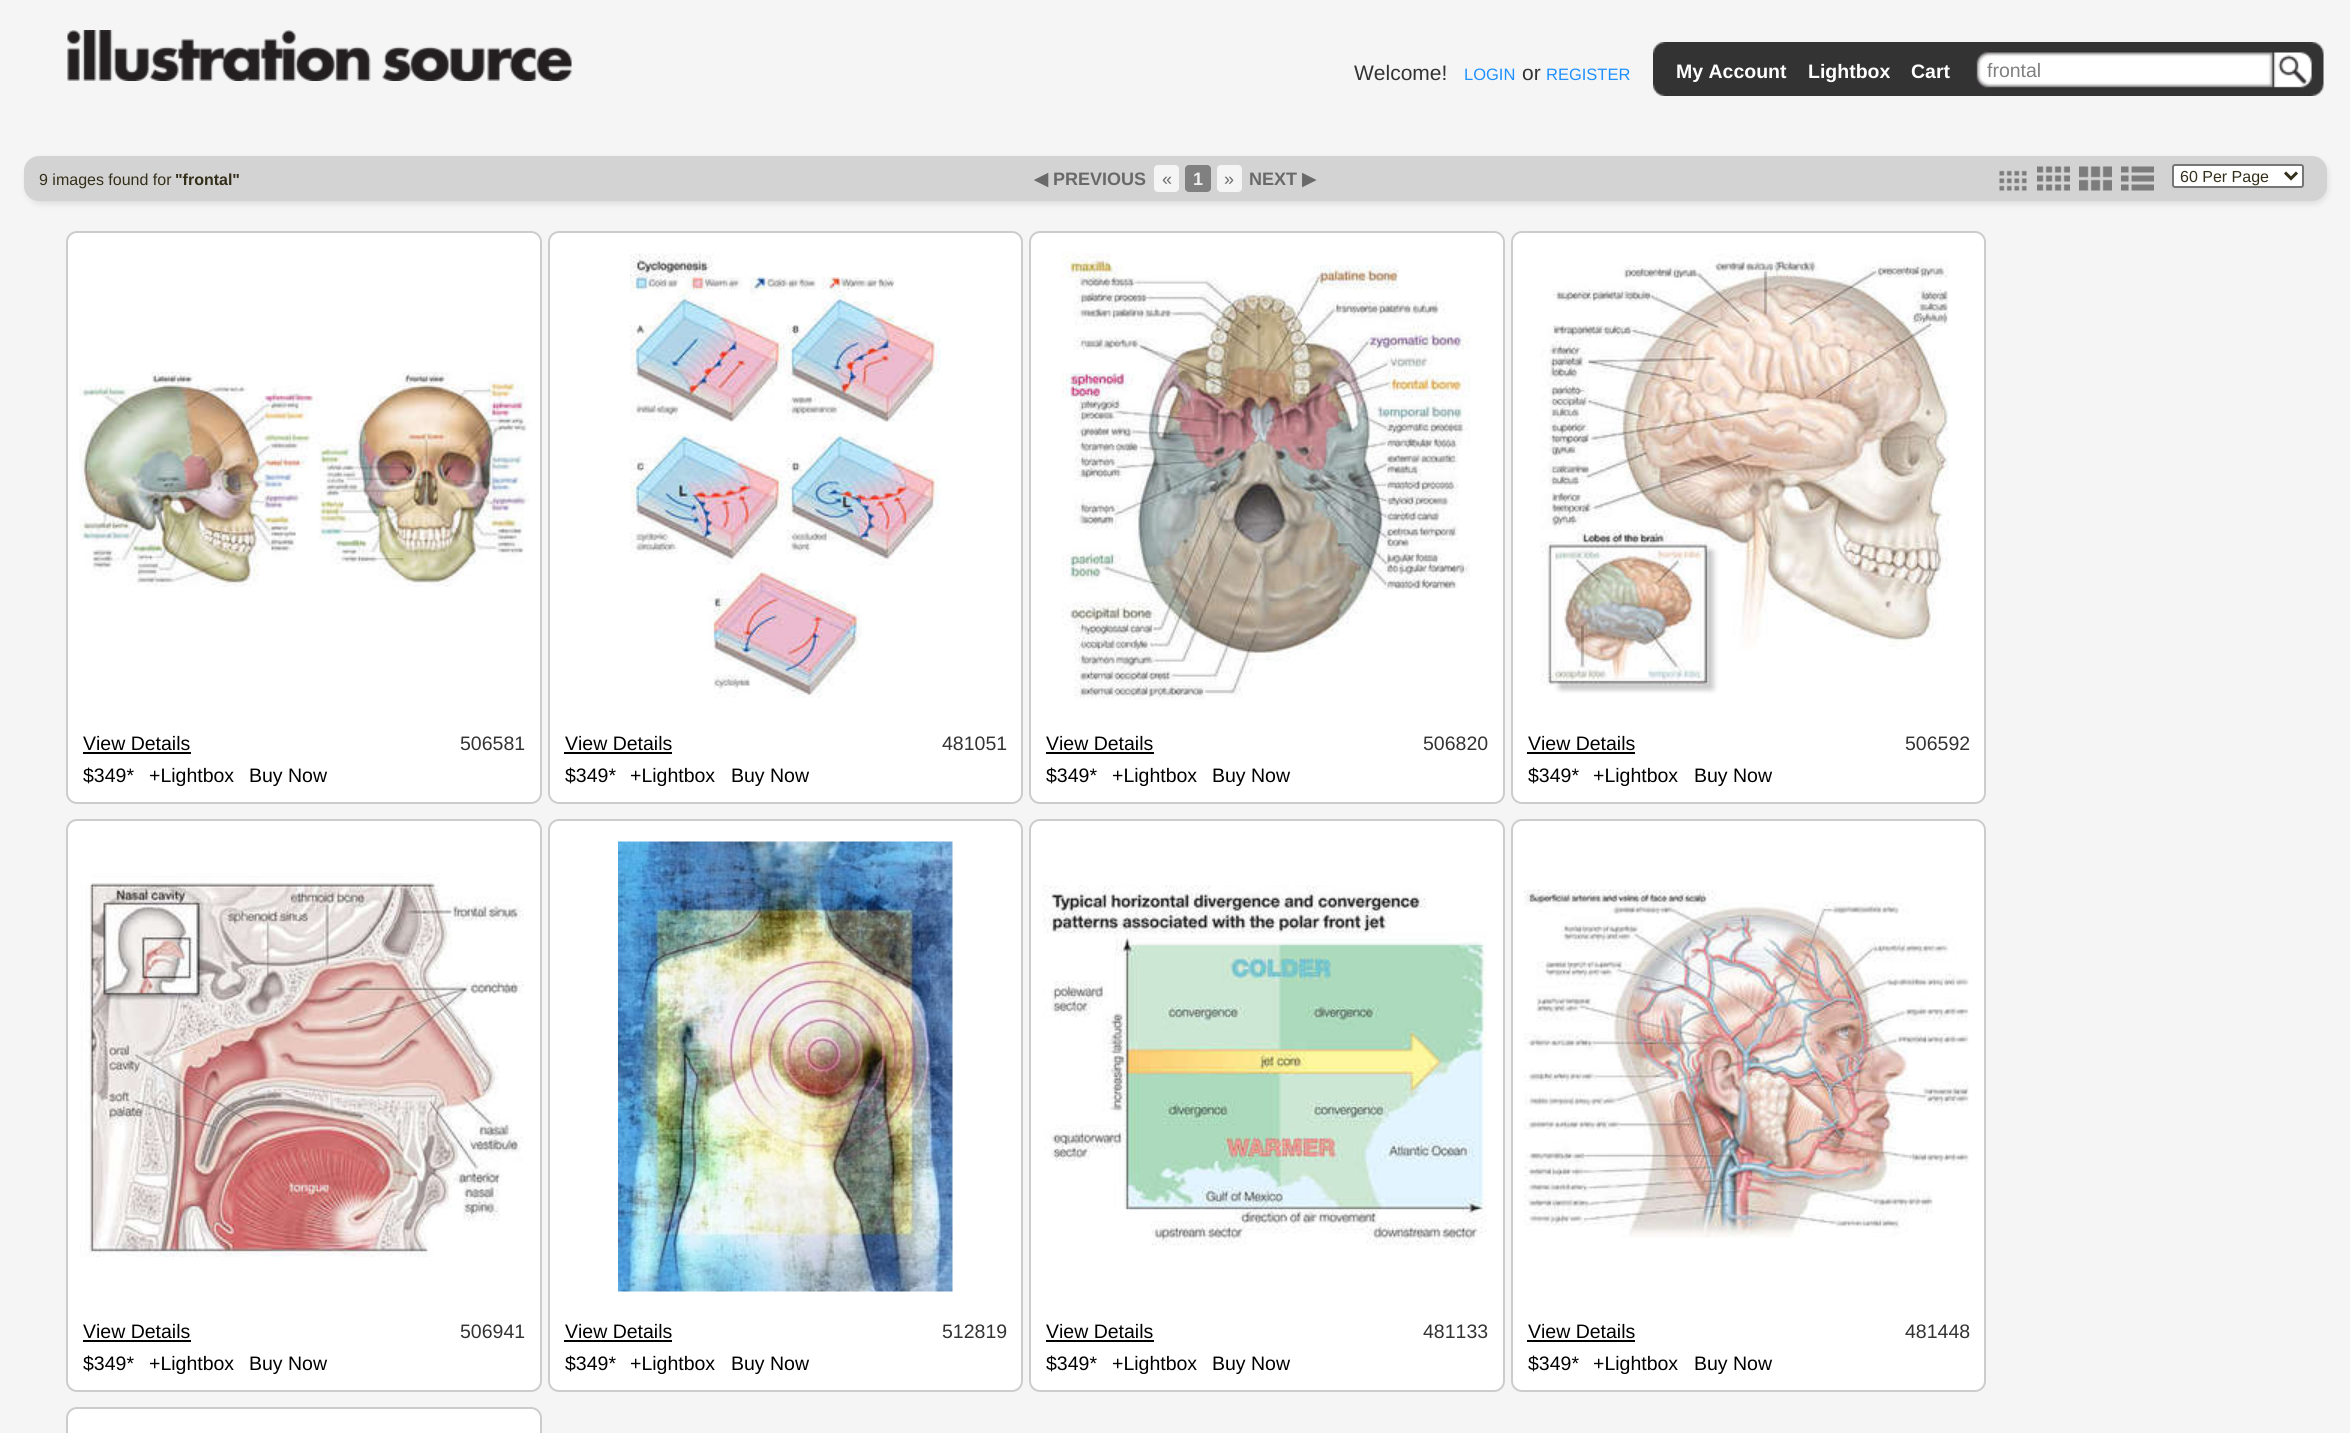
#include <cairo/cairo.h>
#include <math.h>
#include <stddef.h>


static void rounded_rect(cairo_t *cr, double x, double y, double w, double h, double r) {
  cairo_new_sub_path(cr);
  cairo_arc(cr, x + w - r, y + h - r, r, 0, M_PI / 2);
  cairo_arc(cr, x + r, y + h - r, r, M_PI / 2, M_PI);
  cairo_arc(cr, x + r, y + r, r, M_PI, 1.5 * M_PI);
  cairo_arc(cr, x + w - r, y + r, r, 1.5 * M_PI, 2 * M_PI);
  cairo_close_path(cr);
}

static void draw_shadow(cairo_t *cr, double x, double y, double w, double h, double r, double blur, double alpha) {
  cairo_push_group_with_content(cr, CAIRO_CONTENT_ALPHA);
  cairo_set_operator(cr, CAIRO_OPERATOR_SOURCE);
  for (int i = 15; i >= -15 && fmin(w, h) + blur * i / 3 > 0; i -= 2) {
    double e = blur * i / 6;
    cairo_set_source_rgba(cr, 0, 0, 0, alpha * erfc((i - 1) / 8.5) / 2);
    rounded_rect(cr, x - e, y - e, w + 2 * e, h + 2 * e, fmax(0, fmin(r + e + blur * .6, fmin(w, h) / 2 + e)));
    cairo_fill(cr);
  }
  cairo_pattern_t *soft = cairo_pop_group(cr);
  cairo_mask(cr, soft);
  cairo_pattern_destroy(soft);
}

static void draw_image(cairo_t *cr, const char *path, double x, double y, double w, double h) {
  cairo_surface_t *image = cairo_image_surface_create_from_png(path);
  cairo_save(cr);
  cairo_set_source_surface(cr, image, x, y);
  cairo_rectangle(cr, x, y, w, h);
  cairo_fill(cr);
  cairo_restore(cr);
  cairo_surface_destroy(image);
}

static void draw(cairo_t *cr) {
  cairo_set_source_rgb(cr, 245 / 255.0, 245 / 255.0, 245 / 255.0);
  cairo_paint(cr);
  draw_image(cr, "images/1.png", 67, 30, 505, 51);
  cairo_set_source_rgb(cr, 51 / 255.0, 51 / 255.0, 51 / 255.0);
  cairo_rectangle(cr, 1677, 42, 627, 54);
  cairo_fill(cr);
  draw_image(cr, "images/2.png", 1653, 42, 24, 54);
  draw_image(cr, "images/4.png", 2304, 42, 20, 54);
  draw_image(cr, "images/3.png", 1976, 51, 337, 38);
  cairo_set_source_rgb(cr, 0, 0, 0);
  draw_shadow(cr, 26, 159, 2302, 45, 15, 3, 0.1);
  cairo_set_source_rgb(cr, 211 / 255.0, 211 / 255.0, 211 / 255.0);
  rounded_rect(cr, 24, 156, 2303, 45, 15);
  cairo_fill(cr);
  cairo_set_source_rgb(cr, 245 / 255.0, 245 / 255.0, 245 / 255.0);
  rounded_rect(cr, 1154, 165, 25, 27, 4);
  cairo_fill(cr);
  cairo_set_source_rgb(cr, 128 / 255.0, 128 / 255.0, 128 / 255.0);
  rounded_rect(cr, 1185, 165, 26, 27, 4);
  cairo_fill(cr);
  cairo_set_source_rgb(cr, 245 / 255.0, 245 / 255.0, 245 / 255.0);
  rounded_rect(cr, 1217, 165, 25, 27, 4);
  cairo_fill(cr);
  draw_image(cr, "images/5.png", 1999, 170, 28, 21);
  draw_image(cr, "images/6.png", 2037, 166, 33, 25);
  draw_image(cr, "images/7.png", 2079, 166, 33, 25);
  draw_image(cr, "images/8.png", 2121, 166, 33, 25);
  cairo_set_source_rgb(cr, 1, 1, 1);
  rounded_rect(cr, 2173, 165, 130, 22, 2);
  cairo_fill_preserve(cr);
  cairo_set_source_rgb(cr, 118 / 255.0, 118 / 255.0, 118 / 255.0);
  cairo_stroke(cr);
  cairo_new_path(cr);
  cairo_move_to(cr, 2285, 172.5);
  cairo_line_to(cr, 2291, 178.5);
  cairo_line_to(cr, 2297, 172.5);
  cairo_set_source_rgb(cr, 52 / 255.0, 47 / 255.0, 26 / 255.0);
  cairo_set_line_width(cr, 3);
  cairo_stroke(cr);
  cairo_set_source_rgb(cr, 1, 1, 1);
  rounded_rect(cr, 67, 232, 474, 571, 10);
  cairo_fill_preserve(cr);
  cairo_set_source_rgb(cr, 204 / 255.0, 204 / 255.0, 204 / 255.0);
  cairo_set_line_width(cr, 2);
  cairo_stroke(cr);
  draw_image(cr, "images/9.png", 79, 372, 451, 215);
  cairo_set_source_rgb(cr, 0, 0, 0);
  cairo_rectangle(cr, 83, 752, 108, 2);
  cairo_fill(cr);
  cairo_set_source_rgb(cr, 1, 1, 1);
  rounded_rect(cr, 549, 232, 473, 571, 10);
  cairo_fill_preserve(cr);
  cairo_set_source_rgb(cr, 204 / 255.0, 204 / 255.0, 204 / 255.0);
  cairo_stroke(cr);
  draw_image(cr, "images/10.png", 630, 253, 311, 445);
  cairo_set_source_rgb(cr, 0, 0, 0);
  cairo_rectangle(cr, 564, 752, 108, 2);
  cairo_fill(cr);
  cairo_set_source_rgb(cr, 1, 1, 1);
  rounded_rect(cr, 1030, 232, 474, 571, 10);
  cairo_fill_preserve(cr);
  cairo_set_source_rgb(cr, 204 / 255.0, 204 / 255.0, 204 / 255.0);
  cairo_stroke(cr);
  draw_image(cr, "images/11.png", 1062, 253, 408, 447);
  cairo_set_source_rgb(cr, 0, 0, 0);
  cairo_rectangle(cr, 1046, 752, 108, 2);
  cairo_fill(cr);
  cairo_set_source_rgb(cr, 1, 1, 1);
  rounded_rect(cr, 1512, 232, 473, 571, 10);
  cairo_fill_preserve(cr);
  cairo_set_source_rgb(cr, 204 / 255.0, 204 / 255.0, 204 / 255.0);
  cairo_stroke(cr);
  draw_image(cr, "images/12.png", 1540, 253, 409, 441);
  cairo_set_source_rgb(cr, 0, 0, 0);
  cairo_rectangle(cr, 1527, 752, 108, 2);
  cairo_fill(cr);
  cairo_set_source_rgb(cr, 1, 1, 1);
  rounded_rect(cr, 67, 820, 474, 571, 10);
  cairo_fill_preserve(cr);
  cairo_set_source_rgb(cr, 204 / 255.0, 204 / 255.0, 204 / 255.0);
  cairo_stroke(cr);
  draw_image(cr, "images/13.png", 80, 873, 444, 384);
  cairo_set_source_rgb(cr, 0, 0, 0);
  cairo_rectangle(cr, 83, 1340, 108, 2);
  cairo_fill(cr);
  cairo_set_source_rgb(cr, 1, 1, 1);
  rounded_rect(cr, 549, 820, 473, 571, 10);
  cairo_fill_preserve(cr);
  cairo_set_source_rgb(cr, 204 / 255.0, 204 / 255.0, 204 / 255.0);
  cairo_stroke(cr);
  draw_image(cr, "images/14.png", 618, 841, 335, 451);
  cairo_set_source_rgb(cr, 0, 0, 0);
  cairo_rectangle(cr, 564, 1340, 108, 2);
  cairo_fill(cr);
  cairo_set_source_rgb(cr, 1, 1, 1);
  rounded_rect(cr, 1030, 820, 474, 571, 10);
  cairo_fill_preserve(cr);
  cairo_set_source_rgb(cr, 204 / 255.0, 204 / 255.0, 204 / 255.0);
  cairo_stroke(cr);
  draw_image(cr, "images/15.png", 1042, 885, 445, 361);
  cairo_set_source_rgb(cr, 0, 0, 0);
  cairo_rectangle(cr, 1046, 1340, 108, 2);
  cairo_fill(cr);
  cairo_set_source_rgb(cr, 1, 1, 1);
  rounded_rect(cr, 1512, 820, 473, 571, 10);
  cairo_fill_preserve(cr);
  cairo_set_source_rgb(cr, 204 / 255.0, 204 / 255.0, 204 / 255.0);
  cairo_stroke(cr);
  draw_image(cr, "images/16.png", 1524, 889, 445, 349);
  cairo_set_source_rgb(cr, 0, 0, 0);
  cairo_rectangle(cr, 1527, 1340, 108, 2);
  cairo_fill(cr);
  cairo_set_source_rgb(cr, 1, 1, 1);
  rounded_rect(cr, 67, 1408, 474, 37, 10);
  cairo_fill_preserve(cr);
  cairo_set_source_rgb(cr, 204 / 255.0, 204 / 255.0, 204 / 255.0);
  cairo_stroke(cr);
  cairo_select_font_face(cr, "Liberation Sans", CAIRO_FONT_SLANT_NORMAL, CAIRO_FONT_WEIGHT_NORMAL);
  cairo_set_font_size(cr, 21);
  cairo_set_source_rgb(cr, 51 / 255.0, 51 / 255.0, 51 / 255.0);
  cairo_move_to(cr, 1354, 80);
  cairo_show_text(cr, "Welcome!");
  cairo_set_font_size(cr, 16.5);
  cairo_set_source_rgb(cr, 30 / 255.0, 144 / 255.0, 1);
  cairo_move_to(cr, 1464, 80);
  cairo_show_text(cr, "LOGIN");
  cairo_set_font_size(cr, 21);
  cairo_set_source_rgb(cr, 51 / 255.0, 51 / 255.0, 51 / 255.0);
  cairo_move_to(cr, 1522, 80);
  cairo_show_text(cr, "or");
  cairo_set_font_size(cr, 16.5);
  cairo_set_source_rgb(cr, 30 / 255.0, 144 / 255.0, 1);
  cairo_move_to(cr, 1546, 80);
  cairo_show_text(cr, "REGISTER");
  cairo_select_font_face(cr, "Liberation Sans", CAIRO_FONT_SLANT_NORMAL, CAIRO_FONT_WEIGHT_BOLD);
  cairo_set_font_size(cr, 19.5);
  cairo_set_source_rgb(cr, 1, 1, 1);
  cairo_move_to(cr, 1676, 78);
  cairo_show_text(cr, "My Account");
  cairo_move_to(cr, 1808, 78);
  cairo_show_text(cr, "Lightbox");
  cairo_move_to(cr, 1911, 78);
  cairo_show_text(cr, "Cart");
  cairo_select_font_face(cr, "Liberation Sans", CAIRO_FONT_SLANT_NORMAL, CAIRO_FONT_WEIGHT_NORMAL);
  cairo_set_source_rgb(cr, 128 / 255.0, 128 / 255.0, 128 / 255.0);
  cairo_move_to(cr, 1987, 77);
  cairo_show_text(cr, "frontal");
  cairo_set_font_size(cr, 16);
  cairo_set_source_rgb(cr, 52 / 255.0, 47 / 255.0, 26 / 255.0);
  cairo_move_to(cr, 39, 185);
  cairo_show_text(cr, "9 images found for");
  cairo_select_font_face(cr, "Liberation Sans", CAIRO_FONT_SLANT_NORMAL, CAIRO_FONT_WEIGHT_BOLD);
  cairo_move_to(cr, 175, 185);
  cairo_show_text(cr, "\"frontal\"");
  cairo_select_font_face(cr, "DejaVu Sans", CAIRO_FONT_SLANT_NORMAL, CAIRO_FONT_WEIGHT_BOLD);
  cairo_set_font_size(cr, 18);
  cairo_set_source_rgb(cr, 105 / 255.0, 105 / 255.0, 105 / 255.0);
  cairo_move_to(cr, 1034, 185);
  cairo_show_text(cr, "◀");
  cairo_select_font_face(cr, "Liberation Sans", CAIRO_FONT_SLANT_NORMAL, CAIRO_FONT_WEIGHT_BOLD);
  cairo_move_to(cr, 1053, 185);
  cairo_show_text(cr, "PREVIOUS");
  cairo_select_font_face(cr, "Liberation Sans", CAIRO_FONT_SLANT_NORMAL, CAIRO_FONT_WEIGHT_NORMAL);
  cairo_move_to(cr, 1162, 185);
  cairo_show_text(cr, "«");
  cairo_select_font_face(cr, "Liberation Sans", CAIRO_FONT_SLANT_NORMAL, CAIRO_FONT_WEIGHT_BOLD);
  cairo_set_source_rgb(cr, 238 / 255.0, 238 / 255.0, 238 / 255.0);
  cairo_move_to(cr, 1193, 185);
  cairo_show_text(cr, "1");
  cairo_select_font_face(cr, "Liberation Sans", CAIRO_FONT_SLANT_NORMAL, CAIRO_FONT_WEIGHT_NORMAL);
  cairo_set_source_rgb(cr, 105 / 255.0, 105 / 255.0, 105 / 255.0);
  cairo_move_to(cr, 1224, 185);
  cairo_show_text(cr, "»");
  cairo_select_font_face(cr, "Liberation Sans", CAIRO_FONT_SLANT_NORMAL, CAIRO_FONT_WEIGHT_BOLD);
  cairo_move_to(cr, 1249, 185);
  cairo_show_text(cr, "NEXT");
  cairo_select_font_face(cr, "DejaVu Sans", CAIRO_FONT_SLANT_NORMAL, CAIRO_FONT_WEIGHT_BOLD);
  cairo_move_to(cr, 1302, 185);
  cairo_show_text(cr, "▶");
  cairo_select_font_face(cr, "Liberation Sans", CAIRO_FONT_SLANT_NORMAL, CAIRO_FONT_WEIGHT_NORMAL);
  cairo_set_font_size(cr, 16);
  cairo_set_source_rgb(cr, 52 / 255.0, 47 / 255.0, 26 / 255.0);
  cairo_move_to(cr, 2180, 182);
  cairo_show_text(cr, "60 Per Page");
  cairo_set_font_size(cr, 19.5);
  cairo_set_source_rgb(cr, 0, 0, 0);
  cairo_move_to(cr, 83, 750);
  cairo_show_text(cr, "View Details");
  cairo_set_source_rgb(cr, 51 / 255.0, 51 / 255.0, 51 / 255.0);
  cairo_move_to(cr, 460, 750);
  cairo_show_text(cr, "506581");
  cairo_set_source_rgb(cr, 0, 0, 0);
  cairo_move_to(cr, 83, 782);
  cairo_show_text(cr, "$349*");
  cairo_move_to(cr, 149, 782);
  cairo_show_text(cr, "+Lightbox");
  cairo_move_to(cr, 249, 782);
  cairo_show_text(cr, "Buy Now");
  cairo_move_to(cr, 565, 750);
  cairo_show_text(cr, "View Details");
  cairo_set_source_rgb(cr, 51 / 255.0, 51 / 255.0, 51 / 255.0);
  cairo_move_to(cr, 942, 750);
  cairo_show_text(cr, "481051");
  cairo_set_source_rgb(cr, 0, 0, 0);
  cairo_move_to(cr, 565, 782);
  cairo_show_text(cr, "$349*");
  cairo_move_to(cr, 630, 782);
  cairo_show_text(cr, "+Lightbox");
  cairo_move_to(cr, 731, 782);
  cairo_show_text(cr, "Buy Now");
  cairo_move_to(cr, 1046, 750);
  cairo_show_text(cr, "View Details");
  cairo_set_source_rgb(cr, 51 / 255.0, 51 / 255.0, 51 / 255.0);
  cairo_move_to(cr, 1423, 750);
  cairo_show_text(cr, "506820");
  cairo_set_source_rgb(cr, 0, 0, 0);
  cairo_move_to(cr, 1046, 782);
  cairo_show_text(cr, "$349*");
  cairo_move_to(cr, 1112, 782);
  cairo_show_text(cr, "+Lightbox");
  cairo_move_to(cr, 1212, 782);
  cairo_show_text(cr, "Buy Now");
  cairo_move_to(cr, 1528, 750);
  cairo_show_text(cr, "View Details");
  cairo_set_source_rgb(cr, 51 / 255.0, 51 / 255.0, 51 / 255.0);
  cairo_move_to(cr, 1905, 750);
  cairo_show_text(cr, "506592");
  cairo_set_source_rgb(cr, 0, 0, 0);
  cairo_move_to(cr, 1528, 782);
  cairo_show_text(cr, "$349*");
  cairo_move_to(cr, 1593, 782);
  cairo_show_text(cr, "+Lightbox");
  cairo_move_to(cr, 1694, 782);
  cairo_show_text(cr, "Buy Now");
  cairo_move_to(cr, 83, 1338);
  cairo_show_text(cr, "View Details");
  cairo_set_source_rgb(cr, 51 / 255.0, 51 / 255.0, 51 / 255.0);
  cairo_move_to(cr, 460, 1338);
  cairo_show_text(cr, "506941");
  cairo_set_source_rgb(cr, 0, 0, 0);
  cairo_move_to(cr, 83, 1370);
  cairo_show_text(cr, "$349*");
  cairo_move_to(cr, 149, 1370);
  cairo_show_text(cr, "+Lightbox");
  cairo_move_to(cr, 249, 1370);
  cairo_show_text(cr, "Buy Now");
  cairo_move_to(cr, 565, 1338);
  cairo_show_text(cr, "View Details");
  cairo_set_source_rgb(cr, 51 / 255.0, 51 / 255.0, 51 / 255.0);
  cairo_move_to(cr, 942, 1338);
  cairo_show_text(cr, "512819");
  cairo_set_source_rgb(cr, 0, 0, 0);
  cairo_move_to(cr, 565, 1370);
  cairo_show_text(cr, "$349*");
  cairo_move_to(cr, 630, 1370);
  cairo_show_text(cr, "+Lightbox");
  cairo_move_to(cr, 731, 1370);
  cairo_show_text(cr, "Buy Now");
  cairo_move_to(cr, 1046, 1338);
  cairo_show_text(cr, "View Details");
  cairo_set_source_rgb(cr, 51 / 255.0, 51 / 255.0, 51 / 255.0);
  cairo_move_to(cr, 1423, 1338);
  cairo_show_text(cr, "481133");
  cairo_set_source_rgb(cr, 0, 0, 0);
  cairo_move_to(cr, 1046, 1370);
  cairo_show_text(cr, "$349*");
  cairo_move_to(cr, 1112, 1370);
  cairo_show_text(cr, "+Lightbox");
  cairo_move_to(cr, 1212, 1370);
  cairo_show_text(cr, "Buy Now");
  cairo_move_to(cr, 1528, 1338);
  cairo_show_text(cr, "View Details");
  cairo_set_source_rgb(cr, 51 / 255.0, 51 / 255.0, 51 / 255.0);
  cairo_move_to(cr, 1905, 1338);
  cairo_show_text(cr, "481448");
  cairo_set_source_rgb(cr, 0, 0, 0);
  cairo_move_to(cr, 1528, 1370);
  cairo_show_text(cr, "$349*");
  cairo_move_to(cr, 1593, 1370);
  cairo_show_text(cr, "+Lightbox");
  cairo_move_to(cr, 1694, 1370);
  cairo_show_text(cr, "Buy Now");
}

int main(void) {
  cairo_surface_t *surface = cairo_image_surface_create(CAIRO_FORMAT_RGB24, 2350, 1433);
  cairo_t *cr = cairo_create(surface);
  cairo_font_options_t *options = cairo_font_options_create();
  cairo_font_options_set_hint_metrics(options, CAIRO_HINT_METRICS_OFF);
  cairo_font_options_set_hint_style(options, CAIRO_HINT_STYLE_NONE);
  cairo_set_font_options(cr, options);
  cairo_set_miter_limit(cr, 4);
  draw(cr);
  cairo_surface_write_to_png(surface, "out.png");
  cairo_font_options_destroy(options);
  cairo_destroy(cr);
  cairo_surface_destroy(surface);
  return 0;
}
